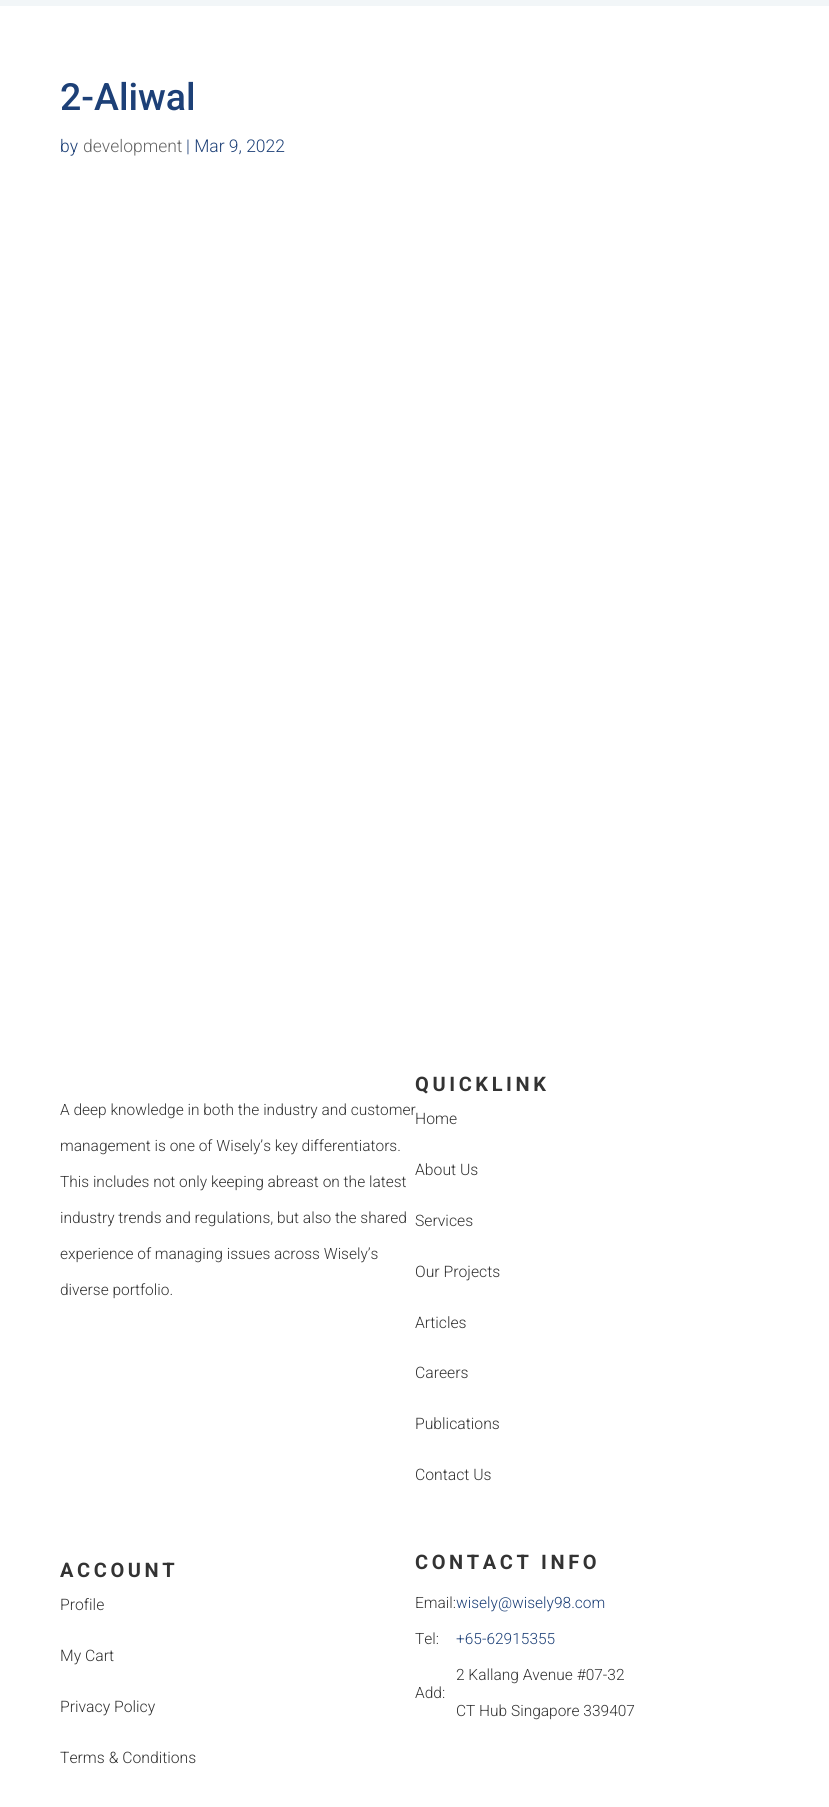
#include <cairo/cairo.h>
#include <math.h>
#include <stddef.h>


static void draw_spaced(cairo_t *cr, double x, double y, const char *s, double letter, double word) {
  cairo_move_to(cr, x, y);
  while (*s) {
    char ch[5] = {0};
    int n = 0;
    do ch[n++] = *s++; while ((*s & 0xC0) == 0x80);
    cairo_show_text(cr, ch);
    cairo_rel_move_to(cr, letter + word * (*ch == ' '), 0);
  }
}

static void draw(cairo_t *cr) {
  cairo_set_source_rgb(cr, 242 / 255.0, 246 / 255.0, 248 / 255.0);
  cairo_paint(cr);
  cairo_set_source_rgb(cr, 1, 1, 1);
  cairo_rectangle(cr, 0, 6, 829, 1801);
  cairo_fill(cr);
  cairo_select_font_face(cr, "Roboto Medium", CAIRO_FONT_SLANT_NORMAL, CAIRO_FONT_WEIGHT_NORMAL);
  cairo_set_font_size(cr, 37.5);
  cairo_set_source_rgb(cr, 29 / 255.0, 64 / 255.0, 119 / 255.0);
  cairo_move_to(cr, 60, 110);
  cairo_show_text(cr, "2-Aliwal");
  cairo_select_font_face(cr, "Roboto Light", CAIRO_FONT_SLANT_NORMAL, CAIRO_FONT_WEIGHT_NORMAL);
  cairo_set_font_size(cr, 17.5);
  cairo_move_to(cr, 60, 152);
  cairo_show_text(cr, "by");
  cairo_set_source_rgb(cr, 102 / 255.0, 102 / 255.0, 102 / 255.0);
  cairo_move_to(cr, 83, 152);
  cairo_show_text(cr, "development");
  cairo_set_source_rgb(cr, 29 / 255.0, 64 / 255.0, 119 / 255.0);
  cairo_move_to(cr, 186, 152);
  cairo_show_text(cr, "| Mar 9, 2022");
  cairo_set_font_size(cr, 15.5);
  cairo_set_source_rgb(cr, 51 / 255.0, 51 / 255.0, 51 / 255.0);
  cairo_move_to(cr, 60, 1115);
  cairo_show_text(cr, "A deep knowledge in both the industry and customer");
  cairo_move_to(cr, 60, 1151);
  cairo_show_text(cr, "management is one of Wisely’s key differentiators.");
  cairo_move_to(cr, 60, 1187);
  cairo_show_text(cr, "This includes not only keeping abreast on the latest");
  cairo_move_to(cr, 60, 1223);
  cairo_show_text(cr, "industry trends and regulations, but also the shared");
  cairo_move_to(cr, 60, 1259);
  cairo_show_text(cr, "experience of managing issues across Wisely’s");
  cairo_move_to(cr, 60, 1295);
  cairo_show_text(cr, "diverse portfolio.");
  cairo_select_font_face(cr, "Roboto", CAIRO_FONT_SLANT_NORMAL, CAIRO_FONT_WEIGHT_BOLD);
  cairo_set_font_size(cr, 20);
  draw_spaced(cr, 415, 1091, "QUICKLINK", 3.6, 0);
  cairo_select_font_face(cr, "Roboto Light", CAIRO_FONT_SLANT_NORMAL, CAIRO_FONT_WEIGHT_NORMAL);
  cairo_set_font_size(cr, 15.75);
  cairo_move_to(cr, 415, 1124);
  cairo_show_text(cr, "Home");
  cairo_move_to(cr, 415, 1175);
  cairo_show_text(cr, "About Us");
  cairo_move_to(cr, 415, 1226);
  cairo_show_text(cr, "Services");
  cairo_move_to(cr, 415, 1277);
  cairo_show_text(cr, "Our Projects");
  cairo_move_to(cr, 415, 1328);
  cairo_show_text(cr, "Articles");
  cairo_move_to(cr, 415, 1378);
  cairo_show_text(cr, "Careers");
  cairo_move_to(cr, 415, 1429);
  cairo_show_text(cr, "Publications");
  cairo_move_to(cr, 415, 1480);
  cairo_show_text(cr, "Contact Us");
  cairo_select_font_face(cr, "Roboto", CAIRO_FONT_SLANT_NORMAL, CAIRO_FONT_WEIGHT_BOLD);
  cairo_set_font_size(cr, 20);
  draw_spaced(cr, 60, 1577, "ACCOUNT", 3.6, 0);
  cairo_select_font_face(cr, "Roboto Light", CAIRO_FONT_SLANT_NORMAL, CAIRO_FONT_WEIGHT_NORMAL);
  cairo_set_font_size(cr, 15.75);
  cairo_move_to(cr, 60, 1610);
  cairo_show_text(cr, "Profile");
  cairo_move_to(cr, 60, 1661);
  cairo_show_text(cr, "My Cart");
  cairo_move_to(cr, 60, 1712);
  cairo_show_text(cr, "Privacy Policy");
  cairo_move_to(cr, 60, 1763);
  cairo_show_text(cr, "Terms & Conditions");
  cairo_select_font_face(cr, "Roboto", CAIRO_FONT_SLANT_NORMAL, CAIRO_FONT_WEIGHT_BOLD);
  cairo_set_font_size(cr, 20);
  draw_spaced(cr, 415, 1569, "CONTACT INFO", 3.6, 0);
  cairo_select_font_face(cr, "Roboto Light", CAIRO_FONT_SLANT_NORMAL, CAIRO_FONT_WEIGHT_NORMAL);
  cairo_set_font_size(cr, 15.5);
  cairo_move_to(cr, 415, 1608);
  cairo_show_text(cr, "Email:");
  cairo_set_source_rgb(cr, 29 / 255.0, 64 / 255.0, 119 / 255.0);
  cairo_move_to(cr, 456, 1608);
  cairo_show_text(cr, "wisely@wisely98.com");
  cairo_set_source_rgb(cr, 51 / 255.0, 51 / 255.0, 51 / 255.0);
  cairo_move_to(cr, 415, 1644);
  cairo_show_text(cr, "Tel:");
  cairo_set_source_rgb(cr, 29 / 255.0, 64 / 255.0, 119 / 255.0);
  cairo_move_to(cr, 456, 1644);
  cairo_show_text(cr, "+65-62915355");
  cairo_set_source_rgb(cr, 51 / 255.0, 51 / 255.0, 51 / 255.0);
  cairo_move_to(cr, 415, 1698);
  cairo_show_text(cr, "Add:");
  cairo_move_to(cr, 456, 1680);
  cairo_show_text(cr, "2 Kallang Avenue #07-32");
  cairo_move_to(cr, 456, 1716);
  cairo_show_text(cr, "CT Hub Singapore 339407");
}

int main(void) {
  cairo_surface_t *surface = cairo_image_surface_create(CAIRO_FORMAT_RGB24, 829, 1807);
  cairo_t *cr = cairo_create(surface);
  cairo_font_options_t *options = cairo_font_options_create();
  cairo_font_options_set_hint_metrics(options, CAIRO_HINT_METRICS_OFF);
  cairo_font_options_set_hint_style(options, CAIRO_HINT_STYLE_NONE);
  cairo_set_font_options(cr, options);
  cairo_set_miter_limit(cr, 4);
  draw(cr);
  cairo_surface_write_to_png(surface, "out.png");
  cairo_font_options_destroy(options);
  cairo_destroy(cr);
  cairo_surface_destroy(surface);
  return 0;
}
